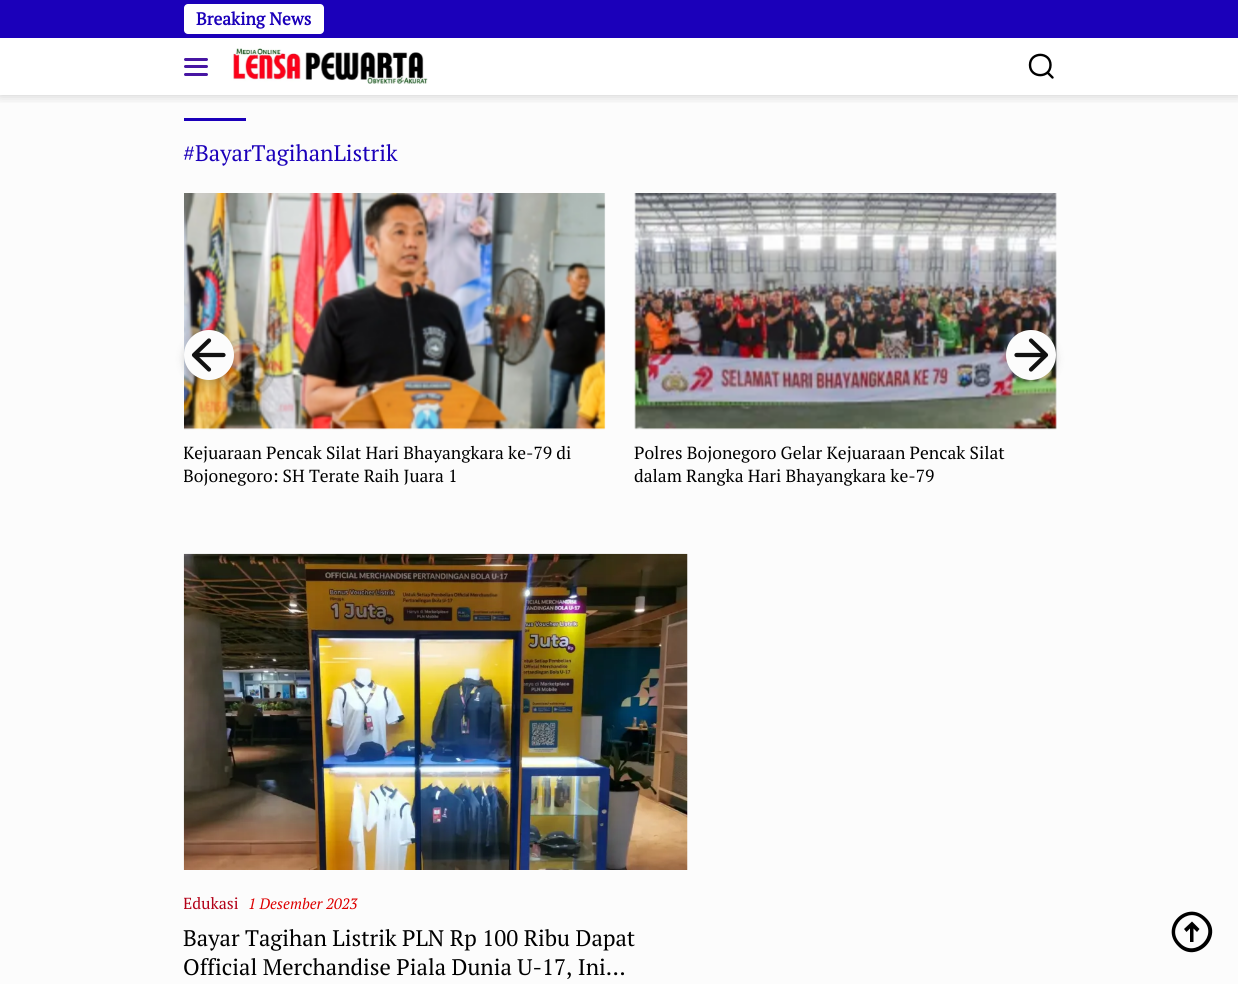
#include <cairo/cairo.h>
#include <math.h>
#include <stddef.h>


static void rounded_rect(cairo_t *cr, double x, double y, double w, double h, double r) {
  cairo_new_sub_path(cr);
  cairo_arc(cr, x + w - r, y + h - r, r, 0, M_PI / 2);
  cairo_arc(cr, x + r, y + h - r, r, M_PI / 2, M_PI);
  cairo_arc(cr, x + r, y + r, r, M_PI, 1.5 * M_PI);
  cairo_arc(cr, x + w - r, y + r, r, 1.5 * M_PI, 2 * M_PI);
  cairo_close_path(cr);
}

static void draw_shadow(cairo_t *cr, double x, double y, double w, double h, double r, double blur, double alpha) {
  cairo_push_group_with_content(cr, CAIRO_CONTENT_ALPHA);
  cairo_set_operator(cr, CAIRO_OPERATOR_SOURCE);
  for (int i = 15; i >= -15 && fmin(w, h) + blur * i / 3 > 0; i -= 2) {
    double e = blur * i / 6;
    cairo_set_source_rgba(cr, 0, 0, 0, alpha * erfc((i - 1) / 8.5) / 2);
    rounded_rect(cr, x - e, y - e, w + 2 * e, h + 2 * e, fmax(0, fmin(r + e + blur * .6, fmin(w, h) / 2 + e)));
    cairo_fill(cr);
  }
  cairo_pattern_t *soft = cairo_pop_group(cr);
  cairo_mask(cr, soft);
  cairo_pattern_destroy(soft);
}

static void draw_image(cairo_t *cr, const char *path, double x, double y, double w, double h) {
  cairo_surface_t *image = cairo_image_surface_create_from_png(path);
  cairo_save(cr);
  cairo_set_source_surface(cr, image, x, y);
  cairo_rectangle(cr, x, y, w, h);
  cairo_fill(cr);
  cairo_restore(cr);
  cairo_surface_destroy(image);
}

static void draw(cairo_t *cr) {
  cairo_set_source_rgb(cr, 1, 1, 1);
  cairo_paint(cr);
  cairo_set_source_rgb(cr, 252 / 255.0, 252 / 255.0, 252 / 255.0);
  cairo_rectangle(cr, 0, 95, 1238, 889);
  cairo_fill(cr);
  cairo_save(cr);
  cairo_rectangle(cr, 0, 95, 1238, 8);
  cairo_clip(cr);
  cairo_set_source_rgb(cr, 0, 0, 0);
  draw_shadow(cr, 0, 0, 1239, 95, 0, 6, 0.2);
  cairo_restore(cr);
  cairo_set_source_rgb(cr, 27 / 255.0, 0, 186 / 255.0);
  cairo_rectangle(cr, 0, 0, 1238, 38);
  cairo_fill(cr);
  cairo_set_source_rgb(cr, 1, 1, 1);
  rounded_rect(cr, 184, 4, 140, 30, 4);
  cairo_fill(cr);
  cairo_set_source_rgb(cr, 71 / 255.0, 22 / 255.0, 163 / 255.0);
  rounded_rect(cr, 184, 58, 24, 3, 1.5);
  cairo_fill(cr);
  rounded_rect(cr, 184, 65, 24, 3, 1.5);
  cairo_fill(cr);
  rounded_rect(cr, 184, 73, 24, 3, 1.5);
  cairo_fill(cr);
  draw_image(cr, "images/1.png", 233, 48, 195, 36);
  cairo_new_path(cr);
  cairo_move_to(cr, 1052.5, 77.5);
  cairo_line_to(cr, 1047.5, 72.5);
  cairo_move_to(cr, 1050.5, 65);
  cairo_curve_to(cr, 1050.5, 78.5, 1030, 78.5, 1030, 65);
  cairo_curve_to(cr, 1030, 51.5, 1050.5, 51.5, 1050.5, 65);
  cairo_close_path(cr);
  cairo_set_source_rgb(cr, 0, 0, 0);
  cairo_set_line_width(cr, 2.4);
  cairo_set_line_cap(cr, CAIRO_LINE_CAP_ROUND);
  cairo_stroke(cr);
  cairo_set_source_rgb(cr, 27 / 255.0, 0, 186 / 255.0);
  cairo_rectangle(cr, 184, 118, 62, 3);
  cairo_fill(cr);
  draw_image(cr, "images/2.png", 184, 193, 422, 237);
  cairo_set_source_rgb(cr, 51 / 255.0, 51 / 255.0, 51 / 255.0);
  draw_shadow(cr, 184, 334, 50, 50, 25, 4, 0.2);
  cairo_set_source_rgb(cr, 252 / 255.0, 252 / 255.0, 252 / 255.0);
  cairo_arc(cr, 209, 355, 25, 0, 2 * M_PI);
  cairo_fill(cr);
  cairo_new_path(cr);
  cairo_move_to(cr, 223.5, 355);
  cairo_line_to(cr, 194, 355);
  cairo_move_to(cr, 209, 369.5);
  cairo_line_to(cr, 194, 355);
  cairo_line_to(cr, 209, 340.5);
  cairo_set_source_rgb(cr, 17 / 255.0, 17 / 255.0, 17 / 255.0);
  cairo_set_line_width(cr, 4.2);
  cairo_set_line_join(cr, CAIRO_LINE_JOIN_ROUND);
  cairo_stroke(cr);
  draw_image(cr, "images/3.png", 634, 193, 423, 237);
  cairo_set_source_rgb(cr, 51 / 255.0, 51 / 255.0, 51 / 255.0);
  draw_shadow(cr, 1006, 334, 50, 50, 25, 4, 0.2);
  cairo_set_source_rgb(cr, 252 / 255.0, 252 / 255.0, 252 / 255.0);
  cairo_arc(cr, 1031, 355, 25, 0, 2 * M_PI);
  cairo_fill(cr);
  cairo_new_path(cr);
  cairo_move_to(cr, 1016.5, 355);
  cairo_line_to(cr, 1046, 355);
  cairo_move_to(cr, 1031, 340.5);
  cairo_line_to(cr, 1046, 355);
  cairo_line_to(cr, 1031, 369.5);
  cairo_set_source_rgb(cr, 17 / 255.0, 17 / 255.0, 17 / 255.0);
  cairo_stroke(cr);
  draw_image(cr, "images/4.png", 183, 553, 505, 317);
  cairo_set_source_rgb(cr, 0, 0, 0);
  cairo_new_path(cr);
  cairo_move_to(cr, 1197, 932);
  cairo_line_to(cr, 1199.5, 929);
  cairo_line_to(cr, 1192, 921.5);
  cairo_line_to(cr, 1184, 929);
  cairo_line_to(cr, 1186.5, 932);
  cairo_line_to(cr, 1190, 928.5);
  cairo_line_to(cr, 1190, 942);
  cairo_line_to(cr, 1193.5, 942);
  cairo_line_to(cr, 1193.5, 928.5);
  cairo_close_path(cr);
  cairo_fill(cr);
  cairo_set_fill_rule(cr, CAIRO_FILL_RULE_EVEN_ODD);
  cairo_new_path(cr);
  cairo_move_to(cr, 1206, 918);
  cairo_curve_to(cr, 1187, 899, 1159, 927, 1178, 946);
  cairo_curve_to(cr, 1196, 965, 1225, 936, 1206, 918);
  cairo_close_path(cr);
  cairo_move_to(cr, 1203, 920);
  cairo_curve_to(cr, 1188, 905, 1165, 928, 1180, 943);
  cairo_curve_to(cr, 1195, 959, 1219, 935, 1203, 920);
  cairo_close_path(cr);
  cairo_fill(cr);
  cairo_select_font_face(cr, "PT Serif", CAIRO_FONT_SLANT_NORMAL, CAIRO_FONT_WEIGHT_BOLD);
  cairo_set_font_size(cr, 17.5);
  cairo_set_source_rgb(cr, 27 / 255.0, 0, 186 / 255.0);
  cairo_move_to(cr, 196, 25);
  cairo_show_text(cr, "Breaking News");
  cairo_select_font_face(cr, "PT Serif", CAIRO_FONT_SLANT_NORMAL, CAIRO_FONT_WEIGHT_NORMAL);
  cairo_set_font_size(cr, 22.5);
  cairo_move_to(cr, 183, 161);
  cairo_show_text(cr, "#BayarTagihanListrik");
  cairo_save(cr);
  cairo_set_fill_rule(cr, CAIRO_FILL_RULE_WINDING);
  cairo_rectangle(cr, 184, 441, 421, 45);
  cairo_clip(cr);
  cairo_set_font_size(cr, 17.5);
  cairo_set_source_rgb(cr, 0, 0, 0);
  cairo_move_to(cr, 183, 459);
  cairo_show_text(cr, "Kejuaraan Pencak Silat Hari Bhayangkara ke-79 di");
  cairo_move_to(cr, 183, 482);
  cairo_show_text(cr, "Bojonegoro: SH Terate Raih Juara 1");
  cairo_restore(cr);
  cairo_set_font_size(cr, 17.5);
  cairo_set_source_rgb(cr, 0, 0, 0);
  cairo_move_to(cr, 634, 459);
  cairo_show_text(cr, "Polres Bojonegoro Gelar Kejuaraan Pencak Silat");
  cairo_move_to(cr, 634, 482);
  cairo_show_text(cr, "dalam Rangka Hari Bhayangkara ke-79");
  cairo_save(cr);
  cairo_set_fill_rule(cr, CAIRO_FILL_RULE_WINDING);
  cairo_rectangle(cr, 184, 889, 504, 27);
  cairo_clip(cr);
  cairo_set_font_size(cr, 16);
  cairo_set_source_rgb(cr, 178 / 255.0, 0, 23 / 255.0);
  cairo_move_to(cr, 183, 909);
  cairo_show_text(cr, "Edukasi");
  cairo_restore(cr);
  cairo_select_font_face(cr, "PT Serif", CAIRO_FONT_SLANT_ITALIC, CAIRO_FONT_WEIGHT_NORMAL);
  cairo_set_font_size(cr, 15);
  cairo_set_source_rgb(cr, 221 / 255.0, 0, 0);
  cairo_move_to(cr, 248, 909);
  cairo_show_text(cr, "1 Desember 2023");
  cairo_select_font_face(cr, "PT Serif", CAIRO_FONT_SLANT_NORMAL, CAIRO_FONT_WEIGHT_NORMAL);
  cairo_set_font_size(cr, 22.5);
  cairo_set_source_rgb(cr, 0, 0, 0);
  cairo_move_to(cr, 183, 946);
  cairo_show_text(cr, "Bayar Tagihan Listrik PLN Rp 100 Ribu Dapat");
  cairo_move_to(cr, 183, 975);
  cairo_show_text(cr, "Official Merchandise Piala Dunia U-17, Ini…");
}

int main(void) {
  cairo_surface_t *surface = cairo_image_surface_create(CAIRO_FORMAT_RGB24, 1238, 984);
  cairo_t *cr = cairo_create(surface);
  cairo_font_options_t *options = cairo_font_options_create();
  cairo_font_options_set_hint_metrics(options, CAIRO_HINT_METRICS_OFF);
  cairo_font_options_set_hint_style(options, CAIRO_HINT_STYLE_NONE);
  cairo_set_font_options(cr, options);
  cairo_set_miter_limit(cr, 4);
  draw(cr);
  cairo_surface_write_to_png(surface, "out.png");
  cairo_font_options_destroy(options);
  cairo_destroy(cr);
  cairo_surface_destroy(surface);
  return 0;
}
